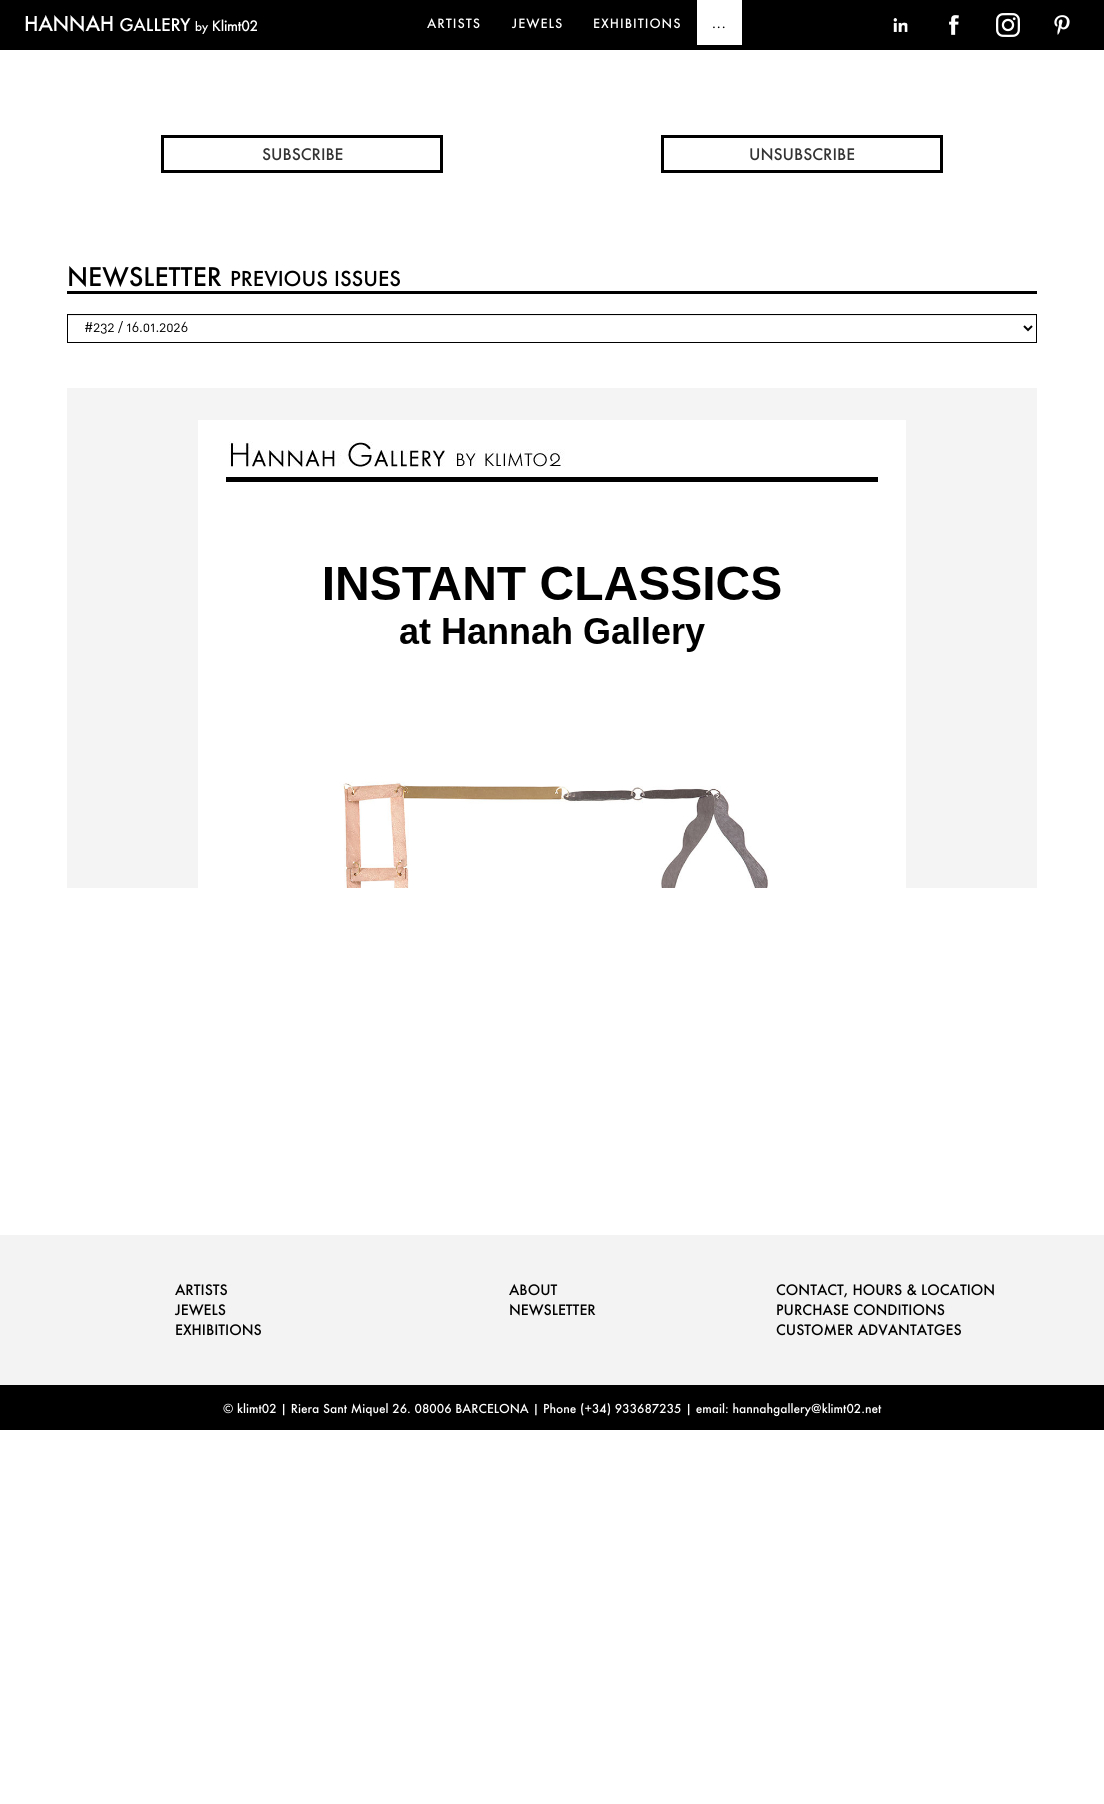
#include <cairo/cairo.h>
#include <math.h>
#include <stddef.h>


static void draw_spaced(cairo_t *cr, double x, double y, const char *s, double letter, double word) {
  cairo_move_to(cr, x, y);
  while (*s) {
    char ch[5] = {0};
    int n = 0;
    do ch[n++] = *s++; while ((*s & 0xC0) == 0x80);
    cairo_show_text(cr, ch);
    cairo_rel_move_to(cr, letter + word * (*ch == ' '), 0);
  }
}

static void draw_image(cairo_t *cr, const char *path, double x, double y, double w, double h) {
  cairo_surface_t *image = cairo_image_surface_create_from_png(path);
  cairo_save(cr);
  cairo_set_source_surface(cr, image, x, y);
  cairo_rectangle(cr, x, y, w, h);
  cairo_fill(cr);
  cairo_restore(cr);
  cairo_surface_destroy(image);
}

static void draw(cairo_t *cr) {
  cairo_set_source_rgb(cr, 1, 1, 1);
  cairo_paint(cr);
  cairo_set_source_rgb(cr, 0, 0, 0);
  cairo_rectangle(cr, 0, 0, 1104, 50);
  cairo_fill(cr);
  draw_image(cr, "images/1.png", 25, 15, 232, 19);
  cairo_set_source_rgb(cr, 1, 1, 1);
  cairo_rectangle(cr, 697, 0, 45, 45);
  cairo_fill(cr);
  draw_image(cr, "images/2.png", 893, 18, 15, 14);
  draw_image(cr, "images/3.png", 949, 15, 10, 20);
  draw_image(cr, "images/4.png", 996, 13, 24, 24);
  draw_image(cr, "images/5.png", 1054, 15, 16, 20);
  cairo_rectangle(cr, 162.5, 136.5, 279, 35);
  cairo_set_source_rgb(cr, 0, 0, 0);
  cairo_set_line_width(cr, 3);
  cairo_stroke(cr);
  cairo_rectangle(cr, 662.5, 136.5, 279, 35);
  cairo_stroke(cr);
  cairo_rectangle(cr, 67, 291, 970, 3);
  cairo_fill(cr);
  cairo_set_source_rgb(cr, 236 / 255.0, 236 / 255.0, 236 / 255.0);
  cairo_rectangle(cr, 68, 315, 968, 1);
  cairo_fill(cr);
  cairo_rectangle(cr, 67.5, 314.5, 969, 28);
  cairo_set_source_rgb(cr, 0, 0, 0);
  cairo_set_line_width(cr, 1);
  cairo_stroke(cr);
  cairo_new_path(cr);
  cairo_move_to(cr, 1024, 326);
  cairo_line_to(cr, 1028, 330);
  cairo_line_to(cr, 1032, 326);
  cairo_set_line_width(cr, 2);
  cairo_stroke(cr);
  draw_image(cr, "images/6.png", 67, 388, 970, 500);
  cairo_set_source_rgb(cr, 243 / 255.0, 243 / 255.0, 243 / 255.0);
  cairo_rectangle(cr, 0, 1235, 1104, 150);
  cairo_fill(cr);
  cairo_set_source_rgb(cr, 0, 0, 0);
  cairo_rectangle(cr, 0, 1385, 1104, 45);
  cairo_fill(cr);
  cairo_select_font_face(cr, "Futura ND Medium", CAIRO_FONT_SLANT_NORMAL, CAIRO_FONT_WEIGHT_NORMAL);
  cairo_set_font_size(cr, 12.5);
  cairo_set_source_rgb(cr, 1, 1, 1);
  draw_spaced(cr, 427, 28, "ARTISTS", 1, 0);
  draw_spaced(cr, 512, 28, "JEWELS", 1, 0);
  draw_spaced(cr, 593, 28, "EXHIBITIONS", 1, 0);
  cairo_set_source_rgb(cr, 0, 0, 0);
  draw_spaced(cr, 712, 28, "...", 1, 0);
  cairo_set_font_size(cr, 15.5);
  cairo_set_source_rgb(cr, 51 / 255.0, 51 / 255.0, 51 / 255.0);
  cairo_move_to(cr, 262, 160);
  cairo_show_text(cr, "SUBSCRIBE");
  cairo_move_to(cr, 749, 160);
  cairo_show_text(cr, "UNSUBSCRIBE");
  cairo_set_font_size(cr, 25);
  cairo_set_source_rgb(cr, 0, 0, 0);
  cairo_move_to(cr, 67, 286);
  cairo_show_text(cr, "NEWSLETTER");
  cairo_set_font_size(cr, 20);
  cairo_move_to(cr, 230, 286);
  cairo_show_text(cr, "PREVIOUS ISSUES");
  cairo_select_font_face(cr, "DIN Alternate", CAIRO_FONT_SLANT_NORMAL, CAIRO_FONT_WEIGHT_NORMAL);
  cairo_set_font_size(cr, 14);
  cairo_move_to(cr, 84, 332);
  cairo_show_text(cr, "#232 / 16.01.2026");
  cairo_select_font_face(cr, "Futura ND Medium", CAIRO_FONT_SLANT_NORMAL, CAIRO_FONT_WEIGHT_NORMAL);
  cairo_move_to(cr, 175, 1295);
  cairo_show_text(cr, "ARTISTS");
  cairo_move_to(cr, 175, 1315);
  cairo_show_text(cr, "JEWELS");
  cairo_move_to(cr, 175, 1335);
  cairo_show_text(cr, "EXHIBITIONS");
  cairo_move_to(cr, 509, 1295);
  cairo_show_text(cr, "ABOUT");
  cairo_move_to(cr, 509, 1315);
  cairo_show_text(cr, "NEWSLETTER");
  cairo_move_to(cr, 776, 1295);
  cairo_show_text(cr, "CONTACT, HOURS & LOCATION");
  cairo_move_to(cr, 776, 1315);
  cairo_show_text(cr, "PURCHASE CONDITIONS");
  cairo_move_to(cr, 776, 1335);
  cairo_show_text(cr, "CUSTOMER ADVANTATGES");
  cairo_set_font_size(cr, 12);
  cairo_set_source_rgb(cr, 1, 1, 1);
  cairo_move_to(cr, 223, 1413);
  cairo_show_text(cr, "© klimt02 | Riera Sant Miquel 26. 08006 BARCELONA | Phone (+34) 933687235 | email: hannahgallery@klimt02.net");
}

int main(void) {
  cairo_surface_t *surface = cairo_image_surface_create(CAIRO_FORMAT_RGB24, 1104, 1804);
  cairo_t *cr = cairo_create(surface);
  cairo_font_options_t *options = cairo_font_options_create();
  cairo_font_options_set_hint_metrics(options, CAIRO_HINT_METRICS_OFF);
  cairo_font_options_set_hint_style(options, CAIRO_HINT_STYLE_NONE);
  cairo_set_font_options(cr, options);
  cairo_set_miter_limit(cr, 4);
  draw(cr);
  cairo_surface_write_to_png(surface, "out.png");
  cairo_font_options_destroy(options);
  cairo_destroy(cr);
  cairo_surface_destroy(surface);
  return 0;
}
